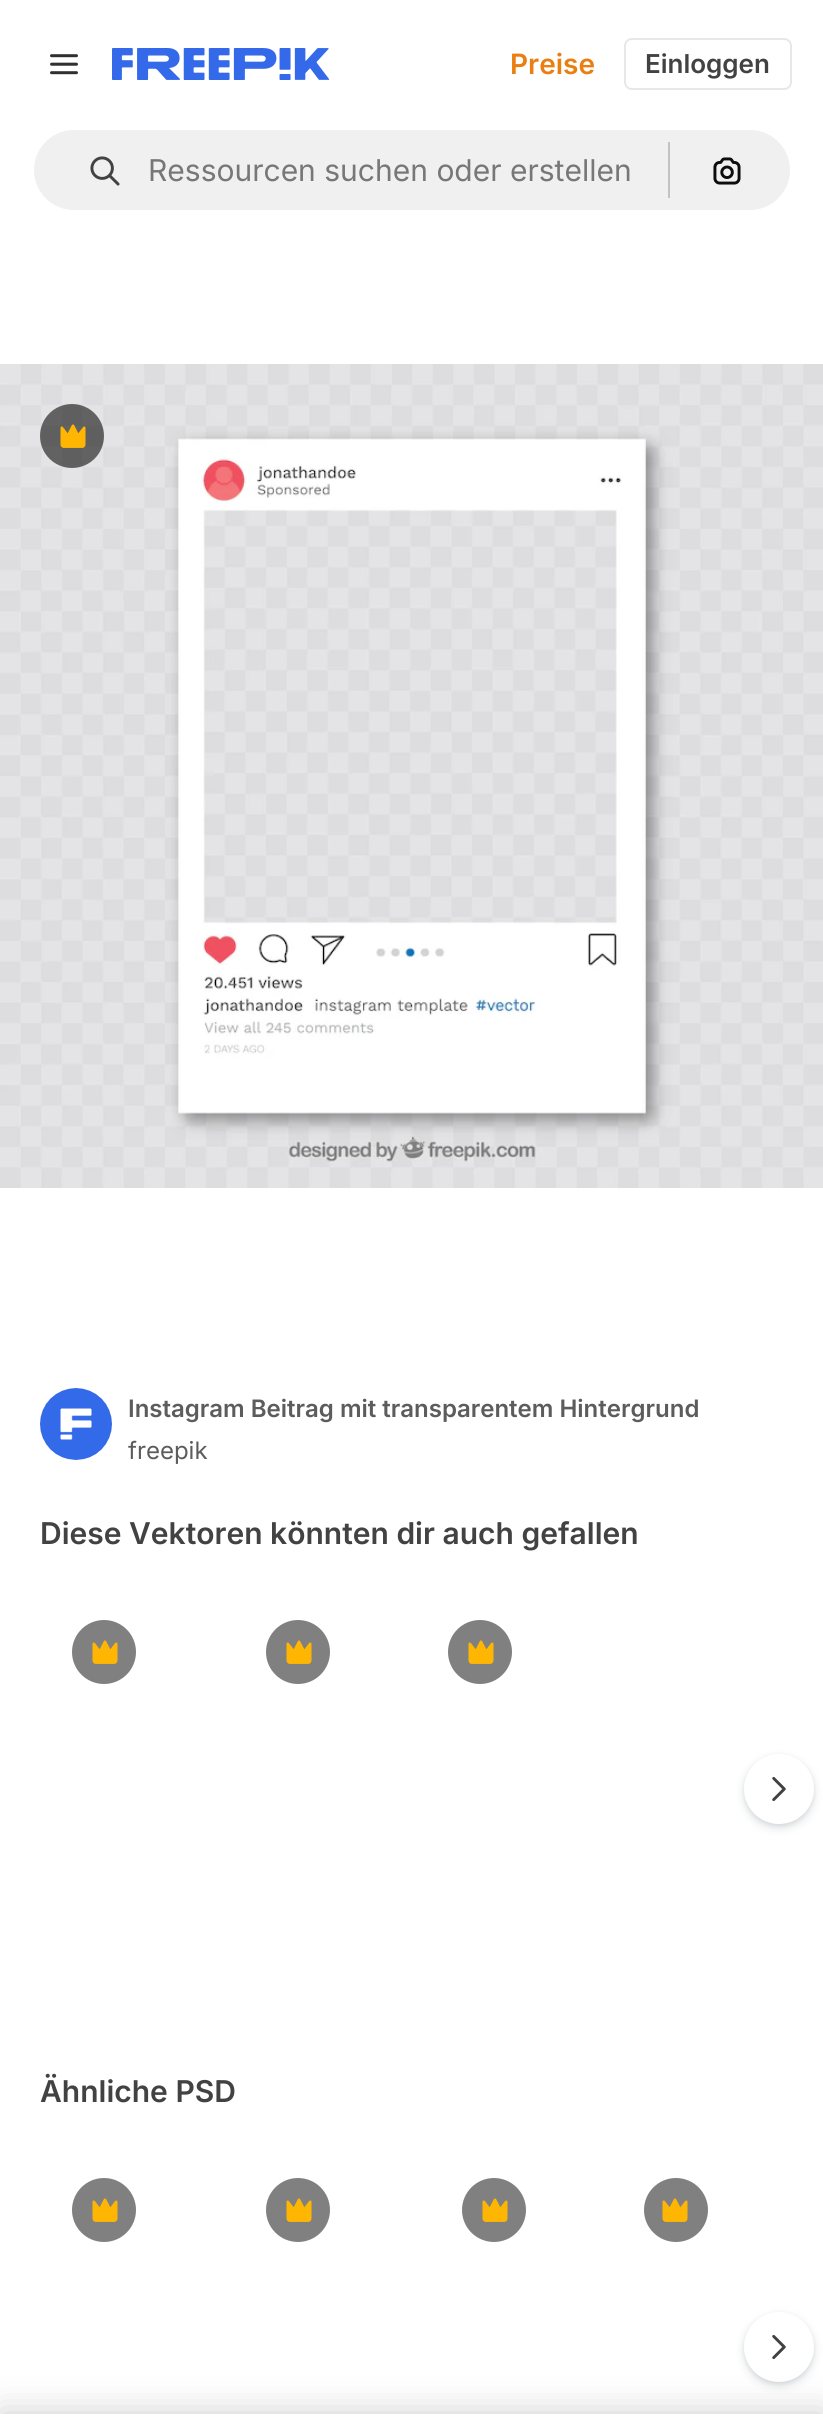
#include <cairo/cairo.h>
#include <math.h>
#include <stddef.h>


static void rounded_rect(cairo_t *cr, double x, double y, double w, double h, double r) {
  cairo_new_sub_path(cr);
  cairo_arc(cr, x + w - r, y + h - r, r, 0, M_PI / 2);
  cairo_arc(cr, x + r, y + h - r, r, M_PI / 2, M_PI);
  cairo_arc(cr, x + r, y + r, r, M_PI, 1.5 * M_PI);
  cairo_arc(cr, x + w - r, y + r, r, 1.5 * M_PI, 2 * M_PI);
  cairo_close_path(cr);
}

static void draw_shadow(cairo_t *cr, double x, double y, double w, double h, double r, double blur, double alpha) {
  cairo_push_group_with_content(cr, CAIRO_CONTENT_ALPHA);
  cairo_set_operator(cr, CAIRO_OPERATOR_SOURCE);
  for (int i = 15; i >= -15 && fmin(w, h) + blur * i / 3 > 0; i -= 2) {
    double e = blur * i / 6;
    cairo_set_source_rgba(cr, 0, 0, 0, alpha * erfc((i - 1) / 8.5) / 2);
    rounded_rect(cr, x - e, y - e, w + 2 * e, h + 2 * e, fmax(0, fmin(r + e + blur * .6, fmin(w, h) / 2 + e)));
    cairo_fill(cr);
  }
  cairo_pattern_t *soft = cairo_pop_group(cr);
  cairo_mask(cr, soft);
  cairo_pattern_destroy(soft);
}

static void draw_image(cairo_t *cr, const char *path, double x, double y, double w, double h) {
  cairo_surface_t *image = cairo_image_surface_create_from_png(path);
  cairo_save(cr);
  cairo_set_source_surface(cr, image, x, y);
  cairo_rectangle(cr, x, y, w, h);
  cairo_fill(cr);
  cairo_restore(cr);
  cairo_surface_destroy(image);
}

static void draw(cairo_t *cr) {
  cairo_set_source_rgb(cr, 1, 1, 1);
  cairo_paint(cr);
  draw_image(cr, "images/1.png", 50, 54, 28, 21);
  draw_image(cr, "images/2.png", 112, 48, 218, 32);
  rounded_rect(cr, 625, 39, 166, 50, 7);
  cairo_set_source_rgb(cr, 231 / 255.0, 231 / 255.0, 231 / 255.0);
  cairo_stroke(cr);
  cairo_set_source_rgb(cr, 240 / 255.0, 240 / 255.0, 240 / 255.0);
  rounded_rect(cr, 33, 129, 758, 82, 41);
  cairo_fill_preserve(cr);
  cairo_set_source_rgb(cr, 1, 1, 1);
  cairo_stroke(cr);
  draw_image(cr, "images/3.png", 90, 156, 30, 30);
  cairo_set_source_rgb(cr, 195 / 255.0, 195 / 255.0, 195 / 255.0);
  cairo_rectangle(cr, 668, 142, 2, 56);
  cairo_fill(cr);
  draw_image(cr, "images/4.png", 713, 157, 28, 28);
  draw_image(cr, "images/5.png", 0, 364, 823, 824);
  cairo_set_source_rgba(cr, 13 / 255.0, 13 / 255.0, 13 / 255.0, 0.6);
  cairo_arc(cr, 72, 436, 32, 0, 2 * M_PI);
  cairo_fill(cr);
  draw_image(cr, "images/6.png", 60, 424, 26, 24);
  draw_image(cr, "images/7.png", 40, 1388, 72, 72);
  cairo_set_source_rgb(cr, 128 / 255.0, 128 / 255.0, 128 / 255.0);
  cairo_arc(cr, 104, 1652, 32, 0, 2 * M_PI);
  cairo_fill(cr);
  draw_image(cr, "images/8.png", 92, 1640, 26, 24);
  cairo_arc(cr, 298, 1652, 32, 0, 2 * M_PI);
  cairo_fill(cr);
  draw_image(cr, "images/8.png", 286, 1640, 26, 24);
  cairo_arc(cr, 480, 1652, 32, 0, 2 * M_PI);
  cairo_fill(cr);
  draw_image(cr, "images/8.png", 468, 1640, 26, 24);
  cairo_set_source_rgb(cr, 55 / 255.0, 73 / 255.0, 87 / 255.0);
  draw_shadow(cr, 744, 1758, 70, 70, 35, 5, 0.15);
  draw_shadow(cr, 744, 1756, 70, 70, 35, 2, 0.1);
  cairo_set_source_rgb(cr, 1, 1, 1);
  cairo_arc(cr, 779, 1789, 35, 0, 2 * M_PI);
  cairo_fill(cr);
  draw_image(cr, "images/9.png", 772, 1776, 14, 26);
  cairo_set_source_rgb(cr, 128 / 255.0, 128 / 255.0, 128 / 255.0);
  cairo_arc(cr, 104, 2210, 32, 0, 2 * M_PI);
  cairo_fill(cr);
  draw_image(cr, "images/8.png", 92, 2198, 26, 24);
  cairo_arc(cr, 298, 2210, 32, 0, 2 * M_PI);
  cairo_fill(cr);
  draw_image(cr, "images/8.png", 286, 2198, 26, 24);
  cairo_arc(cr, 494, 2210, 32, 0, 2 * M_PI);
  cairo_fill(cr);
  draw_image(cr, "images/8.png", 482, 2198, 26, 24);
  cairo_arc(cr, 676, 2210, 32, 0, 2 * M_PI);
  cairo_fill(cr);
  draw_image(cr, "images/8.png", 662, 2198, 26, 24);
  cairo_set_source_rgb(cr, 55 / 255.0, 73 / 255.0, 87 / 255.0);
  draw_shadow(cr, 744, 2316, 70, 70, 35, 5, 0.15);
  draw_shadow(cr, 744, 2314, 70, 70, 35, 2, 0.1);
  cairo_set_source_rgb(cr, 1, 1, 1);
  cairo_arc(cr, 779, 2347, 35, 0, 2 * M_PI);
  cairo_fill(cr);
  draw_image(cr, "images/9.png", 772, 2334, 14, 26);
  cairo_set_source_rgb(cr, 0, 0, 0);
  draw_shadow(cr, 0, 2414, 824, 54, 0, 18, 0.2);
  cairo_select_font_face(cr, "Inter SemiBold", CAIRO_FONT_SLANT_NORMAL, CAIRO_FONT_WEIGHT_NORMAL);
  cairo_set_font_size(cr, 28);
  cairo_set_source_rgb(cr, 234 / 255.0, 126 / 255.0, 17 / 255.0);
  cairo_move_to(cr, 510, 74);
  cairo_show_text(cr, "Preise");
  cairo_set_font_size(cr, 26);
  cairo_set_source_rgb(cr, 66 / 255.0, 66 / 255.0, 66 / 255.0);
  cairo_move_to(cr, 645, 73);
  cairo_show_text(cr, "Einloggen");
  cairo_select_font_face(cr, "Inter", CAIRO_FONT_SLANT_NORMAL, CAIRO_FONT_WEIGHT_NORMAL);
  cairo_set_font_size(cr, 30);
  cairo_set_source_rgb(cr, 119 / 255.0, 119 / 255.0, 119 / 255.0);
  cairo_move_to(cr, 148, 181);
  cairo_show_text(cr, "Ressourcen suchen oder erstellen");
  cairo_select_font_face(cr, "Inter SemiBold", CAIRO_FONT_SLANT_NORMAL, CAIRO_FONT_WEIGHT_NORMAL);
  cairo_set_font_size(cr, 24);
  cairo_set_source_rgb(cr, 92 / 255.0, 92 / 255.0, 92 / 255.0);
  cairo_move_to(cr, 128, 1417);
  cairo_show_text(cr, "Instagram Beitrag mit transparentem Hintergrund");
  cairo_select_font_face(cr, "Inter", CAIRO_FONT_SLANT_NORMAL, CAIRO_FONT_WEIGHT_NORMAL);
  cairo_move_to(cr, 128, 1459);
  cairo_show_text(cr, "freepik");
  cairo_select_font_face(cr, "Inter SemiBold", CAIRO_FONT_SLANT_NORMAL, CAIRO_FONT_WEIGHT_NORMAL);
  cairo_set_font_size(cr, 30);
  cairo_set_source_rgb(cr, 66 / 255.0, 66 / 255.0, 66 / 255.0);
  cairo_move_to(cr, 40, 1544);
  cairo_show_text(cr, "Diese Vektoren könnten dir auch gefallen");
  cairo_move_to(cr, 40, 2102);
  cairo_show_text(cr, "Ähnliche PSD");
}

int main(void) {
  cairo_surface_t *surface = cairo_image_surface_create(CAIRO_FORMAT_RGB24, 823, 2414);
  cairo_t *cr = cairo_create(surface);
  cairo_font_options_t *options = cairo_font_options_create();
  cairo_font_options_set_hint_metrics(options, CAIRO_HINT_METRICS_OFF);
  cairo_font_options_set_hint_style(options, CAIRO_HINT_STYLE_NONE);
  cairo_set_font_options(cr, options);
  cairo_set_miter_limit(cr, 4);
  draw(cr);
  cairo_surface_write_to_png(surface, "out.png");
  cairo_font_options_destroy(options);
  cairo_destroy(cr);
  cairo_surface_destroy(surface);
  return 0;
}
